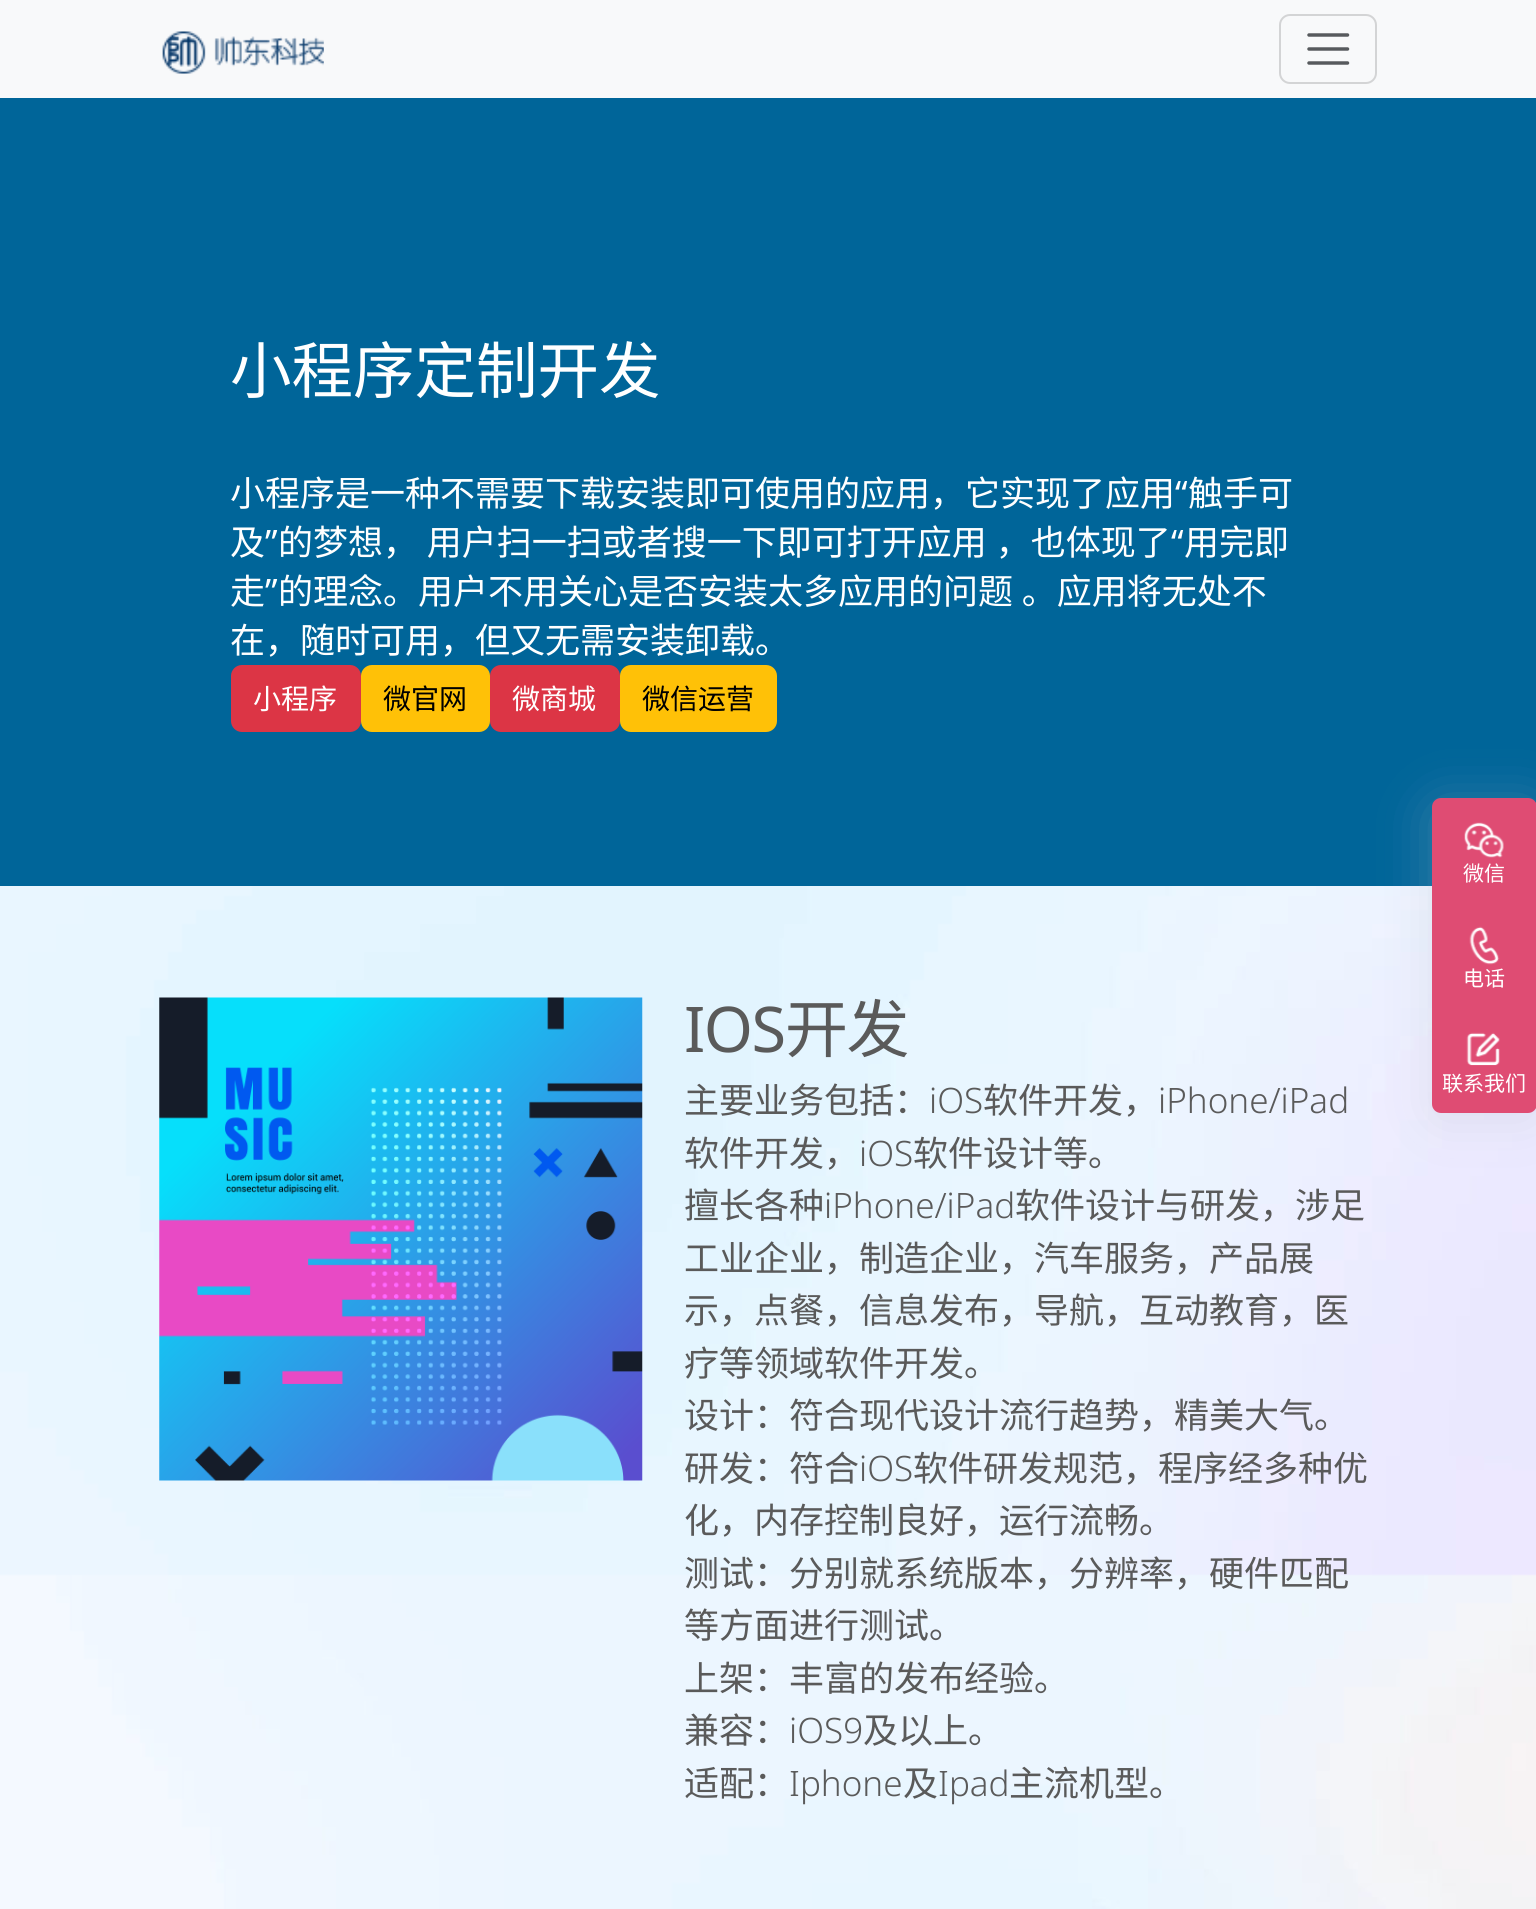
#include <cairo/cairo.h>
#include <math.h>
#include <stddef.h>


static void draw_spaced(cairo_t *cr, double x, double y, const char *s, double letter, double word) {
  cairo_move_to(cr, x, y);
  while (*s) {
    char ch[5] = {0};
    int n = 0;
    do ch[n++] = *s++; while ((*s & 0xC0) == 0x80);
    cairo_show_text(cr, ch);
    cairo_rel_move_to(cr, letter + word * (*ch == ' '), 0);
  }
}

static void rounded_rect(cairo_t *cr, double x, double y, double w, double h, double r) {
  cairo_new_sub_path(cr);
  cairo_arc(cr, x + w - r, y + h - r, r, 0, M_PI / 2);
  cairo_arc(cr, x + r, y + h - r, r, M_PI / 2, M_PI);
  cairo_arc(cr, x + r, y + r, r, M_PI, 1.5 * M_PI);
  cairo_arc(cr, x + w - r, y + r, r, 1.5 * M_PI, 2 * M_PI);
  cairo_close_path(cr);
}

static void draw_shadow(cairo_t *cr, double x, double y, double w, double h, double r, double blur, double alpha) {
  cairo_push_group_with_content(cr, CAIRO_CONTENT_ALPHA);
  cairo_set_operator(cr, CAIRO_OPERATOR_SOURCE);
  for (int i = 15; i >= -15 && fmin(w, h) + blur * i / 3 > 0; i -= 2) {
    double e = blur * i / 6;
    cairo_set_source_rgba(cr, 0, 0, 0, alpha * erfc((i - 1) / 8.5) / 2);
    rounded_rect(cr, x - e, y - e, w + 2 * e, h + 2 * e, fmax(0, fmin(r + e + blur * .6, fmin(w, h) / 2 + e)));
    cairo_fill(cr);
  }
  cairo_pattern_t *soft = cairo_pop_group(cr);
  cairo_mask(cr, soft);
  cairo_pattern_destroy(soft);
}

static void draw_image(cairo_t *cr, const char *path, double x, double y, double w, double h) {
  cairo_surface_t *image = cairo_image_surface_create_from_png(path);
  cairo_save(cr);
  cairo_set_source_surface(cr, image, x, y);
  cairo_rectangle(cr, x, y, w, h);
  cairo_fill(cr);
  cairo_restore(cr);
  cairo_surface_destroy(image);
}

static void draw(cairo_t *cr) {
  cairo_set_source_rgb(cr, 1, 1, 1);
  cairo_paint(cr);
  draw_image(cr, "images/1.png", 0, 886, 1536, 1023);
  cairo_set_source_rgb(cr, 248 / 255.0, 249 / 255.0, 250 / 255.0);
  cairo_rectangle(cr, 0, 0, 1536, 98);
  cairo_fill(cr);
  draw_image(cr, "images/2.png", 162, 31, 162, 43);
  rounded_rect(cr, 1280, 15, 96, 68, 10);
  cairo_set_source_rgb(cr, 211 / 255.0, 212 / 255.0, 213 / 255.0);
  cairo_stroke(cr);
  cairo_new_path(cr);
  cairo_move_to(cr, 1309, 35);
  cairo_line_to(cr, 1347.5, 35);
  cairo_move_to(cr, 1309, 49);
  cairo_line_to(cr, 1347.5, 49);
  cairo_move_to(cr, 1309, 63);
  cairo_line_to(cr, 1347.5, 63);
  cairo_set_source_rgb(cr, 87 / 255.0, 90 / 255.0, 93 / 255.0);
  cairo_set_line_width(cr, 3.5);
  cairo_set_line_cap(cr, CAIRO_LINE_CAP_ROUND);
  cairo_stroke(cr);
  cairo_set_source_rgb(cr, 0, 101 / 255.0, 153 / 255.0);
  cairo_rectangle(cr, 0, 98, 1536, 788);
  cairo_fill(cr);
  cairo_set_source_rgb(cr, 220 / 255.0, 53 / 255.0, 69 / 255.0);
  rounded_rect(cr, 232, 666, 128, 65, 10);
  cairo_fill_preserve(cr);
  cairo_set_line_width(cr, 2);
  cairo_set_line_cap(cr, CAIRO_LINE_CAP_BUTT);
  cairo_stroke(cr);
  cairo_set_source_rgb(cr, 1, 193 / 255.0, 7 / 255.0);
  rounded_rect(cr, 362, 666, 127, 65, 10);
  cairo_fill_preserve(cr);
  cairo_stroke(cr);
  cairo_set_source_rgb(cr, 220 / 255.0, 53 / 255.0, 69 / 255.0);
  rounded_rect(cr, 491, 666, 128, 65, 10);
  cairo_fill_preserve(cr);
  cairo_stroke(cr);
  cairo_set_source_rgb(cr, 1, 193 / 255.0, 7 / 255.0);
  rounded_rect(cr, 621, 666, 155, 65, 10);
  cairo_fill_preserve(cr);
  cairo_stroke(cr);
  draw_image(cr, "images/3.png", 159, 997, 484, 484);
  cairo_set_source_rgb(cr, 183 / 255.0, 190 / 255.0, 203 / 255.0);
  draw_shadow(cr, 1432, 805, 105, 315, 9, 26, 0.3);
  cairo_set_source_rgb(cr, 223 / 255.0, 76 / 255.0, 115 / 255.0);
  rounded_rect(cr, 1432, 798, 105, 315, 9);
  cairo_fill(cr);
  draw_image(cr, "images/4.png", 1464, 822, 40, 36);
  draw_image(cr, "images/5.png", 1469, 926, 31, 39);
  draw_image(cr, "images/6.png", 1466, 1032, 34, 34);
  cairo_select_font_face(cr, "Noto Sans CJK SC", CAIRO_FONT_SLANT_NORMAL, CAIRO_FONT_WEIGHT_NORMAL);
  cairo_set_font_size(cr, 61.5);
  cairo_set_source_rgb(cr, 1, 1, 1);
  cairo_move_to(cr, 230, 393);
  cairo_show_text(cr, "小程序定制开发");
  cairo_set_font_size(cr, 35);
  cairo_move_to(cr, 230, 506);
  cairo_show_text(cr, "小程序是一种不需要下载安装即可使用的应用，它实现了应用");
  cairo_select_font_face(cr, "Noto Sans", CAIRO_FONT_SLANT_NORMAL, CAIRO_FONT_WEIGHT_NORMAL);
  cairo_move_to(cr, 1175, 506);
  cairo_show_text(cr, "“");
  cairo_select_font_face(cr, "Noto Sans CJK SC", CAIRO_FONT_SLANT_NORMAL, CAIRO_FONT_WEIGHT_NORMAL);
  cairo_move_to(cr, 1188, 506);
  cairo_show_text(cr, "触手可");
  cairo_move_to(cr, 230, 555);
  cairo_show_text(cr, "及");
  cairo_select_font_face(cr, "Noto Sans", CAIRO_FONT_SLANT_NORMAL, CAIRO_FONT_WEIGHT_NORMAL);
  cairo_move_to(cr, 265, 555);
  cairo_show_text(cr, "”");
  cairo_select_font_face(cr, "Noto Sans CJK SC", CAIRO_FONT_SLANT_NORMAL, CAIRO_FONT_WEIGHT_NORMAL);
  draw_spaced(cr, 278, 555, "的梦想， 用户扫一扫或者搜一下即可打开应用 ，也体现了", 0, 1);
  cairo_select_font_face(cr, "Noto Sans", CAIRO_FONT_SLANT_NORMAL, CAIRO_FONT_WEIGHT_NORMAL);
  cairo_move_to(cr, 1171, 555);
  cairo_show_text(cr, "“");
  cairo_select_font_face(cr, "Noto Sans CJK SC", CAIRO_FONT_SLANT_NORMAL, CAIRO_FONT_WEIGHT_NORMAL);
  cairo_move_to(cr, 1184, 555);
  cairo_show_text(cr, "用完即");
  cairo_move_to(cr, 230, 604);
  cairo_show_text(cr, "走");
  cairo_select_font_face(cr, "Noto Sans", CAIRO_FONT_SLANT_NORMAL, CAIRO_FONT_WEIGHT_NORMAL);
  cairo_move_to(cr, 265, 604);
  cairo_show_text(cr, "”");
  cairo_select_font_face(cr, "Noto Sans CJK SC", CAIRO_FONT_SLANT_NORMAL, CAIRO_FONT_WEIGHT_NORMAL);
  draw_spaced(cr, 278, 604, "的理念。用户不用关心是否安装太多应用的问题 。应用将无处不", 0, 1);
  cairo_move_to(cr, 230, 653);
  cairo_show_text(cr, "在，随时可用，但又无需安装卸载。");
  cairo_set_font_size(cr, 28);
  cairo_move_to(cr, 253, 709);
  cairo_show_text(cr, "小程序");
  cairo_set_source_rgb(cr, 0, 0, 0);
  cairo_move_to(cr, 383, 709);
  cairo_show_text(cr, "微官网");
  cairo_set_source_rgb(cr, 1, 1, 1);
  cairo_move_to(cr, 512, 709);
  cairo_show_text(cr, "微商城");
  cairo_set_source_rgb(cr, 0, 0, 0);
  cairo_move_to(cr, 642, 709);
  cairo_show_text(cr, "微信运营");
  cairo_select_font_face(cr, "Noto Sans", CAIRO_FONT_SLANT_NORMAL, CAIRO_FONT_WEIGHT_NORMAL);
  cairo_set_font_size(cr, 63);
  cairo_set_source_rgb(cr, 90 / 255.0, 90 / 255.0, 90 / 255.0);
  draw_spaced(cr, 684, 1052, "IOS", -1.5, 0);
  cairo_select_font_face(cr, "Noto Sans CJK SC", CAIRO_FONT_SLANT_NORMAL, CAIRO_FONT_WEIGHT_NORMAL);
  draw_spaced(cr, 785, 1052, "开发", -1.5, 0);
  cairo_set_font_size(cr, 35);
  cairo_move_to(cr, 684, 1113);
  cairo_show_text(cr, "主要业务包括：");
  cairo_select_font_face(cr, "Noto Sans Light", CAIRO_FONT_SLANT_NORMAL, CAIRO_FONT_WEIGHT_NORMAL);
  cairo_move_to(cr, 929, 1113);
  cairo_show_text(cr, "iOS");
  cairo_select_font_face(cr, "Noto Sans CJK SC", CAIRO_FONT_SLANT_NORMAL, CAIRO_FONT_WEIGHT_NORMAL);
  cairo_move_to(cr, 983, 1113);
  cairo_show_text(cr, "软件开发，");
  cairo_select_font_face(cr, "Noto Sans Light", CAIRO_FONT_SLANT_NORMAL, CAIRO_FONT_WEIGHT_NORMAL);
  cairo_move_to(cr, 1158, 1113);
  cairo_show_text(cr, "iPhone/iPad");
  cairo_select_font_face(cr, "Noto Sans CJK SC", CAIRO_FONT_SLANT_NORMAL, CAIRO_FONT_WEIGHT_NORMAL);
  cairo_move_to(cr, 684, 1166);
  cairo_show_text(cr, "软件开发，");
  cairo_select_font_face(cr, "Noto Sans Light", CAIRO_FONT_SLANT_NORMAL, CAIRO_FONT_WEIGHT_NORMAL);
  cairo_move_to(cr, 859, 1166);
  cairo_show_text(cr, "iOS");
  cairo_select_font_face(cr, "Noto Sans CJK SC", CAIRO_FONT_SLANT_NORMAL, CAIRO_FONT_WEIGHT_NORMAL);
  cairo_move_to(cr, 913, 1166);
  cairo_show_text(cr, "软件设计等。");
  cairo_move_to(cr, 684, 1218);
  cairo_show_text(cr, "擅长各种");
  cairo_select_font_face(cr, "Noto Sans Light", CAIRO_FONT_SLANT_NORMAL, CAIRO_FONT_WEIGHT_NORMAL);
  cairo_move_to(cr, 824, 1218);
  cairo_show_text(cr, "iPhone/iPad");
  cairo_select_font_face(cr, "Noto Sans CJK SC", CAIRO_FONT_SLANT_NORMAL, CAIRO_FONT_WEIGHT_NORMAL);
  cairo_move_to(cr, 1015, 1218);
  cairo_show_text(cr, "软件设计与研发，涉足");
  cairo_move_to(cr, 684, 1271);
  cairo_show_text(cr, "工业企业，制造企业，汽车服务，产品展");
  cairo_move_to(cr, 684, 1323);
  cairo_show_text(cr, "示，点餐，信息发布，导航，互动教育，医");
  cairo_move_to(cr, 684, 1376);
  cairo_show_text(cr, "疗等领域软件开发。");
  cairo_move_to(cr, 684, 1428);
  cairo_show_text(cr, "设计：符合现代设计流行趋势，精美大气。");
  cairo_move_to(cr, 684, 1481);
  cairo_show_text(cr, "研发：符合");
  cairo_select_font_face(cr, "Noto Sans Light", CAIRO_FONT_SLANT_NORMAL, CAIRO_FONT_WEIGHT_NORMAL);
  cairo_move_to(cr, 859, 1481);
  cairo_show_text(cr, "iOS");
  cairo_select_font_face(cr, "Noto Sans CJK SC", CAIRO_FONT_SLANT_NORMAL, CAIRO_FONT_WEIGHT_NORMAL);
  cairo_move_to(cr, 913, 1481);
  cairo_show_text(cr, "软件研发规范，程序经多种优");
  cairo_move_to(cr, 684, 1533);
  cairo_show_text(cr, "化，内存控制良好，运行流畅。");
  cairo_move_to(cr, 684, 1586);
  cairo_show_text(cr, "测试：分别就系统版本，分辨率，硬件匹配");
  cairo_move_to(cr, 684, 1638);
  cairo_show_text(cr, "等方面进行测试。");
  cairo_move_to(cr, 684, 1691);
  cairo_show_text(cr, "上架：丰富的发布经验。");
  cairo_move_to(cr, 684, 1743);
  cairo_show_text(cr, "兼容：");
  cairo_select_font_face(cr, "Noto Sans Light", CAIRO_FONT_SLANT_NORMAL, CAIRO_FONT_WEIGHT_NORMAL);
  cairo_move_to(cr, 789, 1743);
  cairo_show_text(cr, "iOS9");
  cairo_select_font_face(cr, "Noto Sans CJK SC", CAIRO_FONT_SLANT_NORMAL, CAIRO_FONT_WEIGHT_NORMAL);
  cairo_move_to(cr, 863, 1743);
  cairo_show_text(cr, "及以上。");
  cairo_move_to(cr, 684, 1796);
  cairo_show_text(cr, "适配：");
  cairo_select_font_face(cr, "Noto Sans Light", CAIRO_FONT_SLANT_NORMAL, CAIRO_FONT_WEIGHT_NORMAL);
  cairo_move_to(cr, 789, 1796);
  cairo_show_text(cr, "Iphone");
  cairo_select_font_face(cr, "Noto Sans CJK SC", CAIRO_FONT_SLANT_NORMAL, CAIRO_FONT_WEIGHT_NORMAL);
  cairo_move_to(cr, 903, 1796);
  cairo_show_text(cr, "及");
  cairo_select_font_face(cr, "Noto Sans Light", CAIRO_FONT_SLANT_NORMAL, CAIRO_FONT_WEIGHT_NORMAL);
  cairo_move_to(cr, 938, 1796);
  cairo_show_text(cr, "Ipad");
  cairo_select_font_face(cr, "Noto Sans CJK SC", CAIRO_FONT_SLANT_NORMAL, CAIRO_FONT_WEIGHT_NORMAL);
  cairo_move_to(cr, 1009, 1796);
  cairo_show_text(cr, "主流机型。");
  cairo_set_font_size(cr, 21);
  cairo_set_source_rgb(cr, 1, 1, 1);
  cairo_move_to(cr, 1463, 881);
  cairo_show_text(cr, "微信");
  cairo_move_to(cr, 1463, 986);
  cairo_show_text(cr, "电话");
  cairo_move_to(cr, 1442, 1091);
  cairo_show_text(cr, "联系我们");
}

int main(void) {
  cairo_surface_t *surface = cairo_image_surface_create(CAIRO_FORMAT_RGB24, 1536, 1909);
  cairo_t *cr = cairo_create(surface);
  cairo_font_options_t *options = cairo_font_options_create();
  cairo_font_options_set_hint_metrics(options, CAIRO_HINT_METRICS_OFF);
  cairo_font_options_set_hint_style(options, CAIRO_HINT_STYLE_NONE);
  cairo_set_font_options(cr, options);
  cairo_set_miter_limit(cr, 4);
  draw(cr);
  cairo_surface_write_to_png(surface, "out.png");
  cairo_font_options_destroy(options);
  cairo_destroy(cr);
  cairo_surface_destroy(surface);
  return 0;
}
